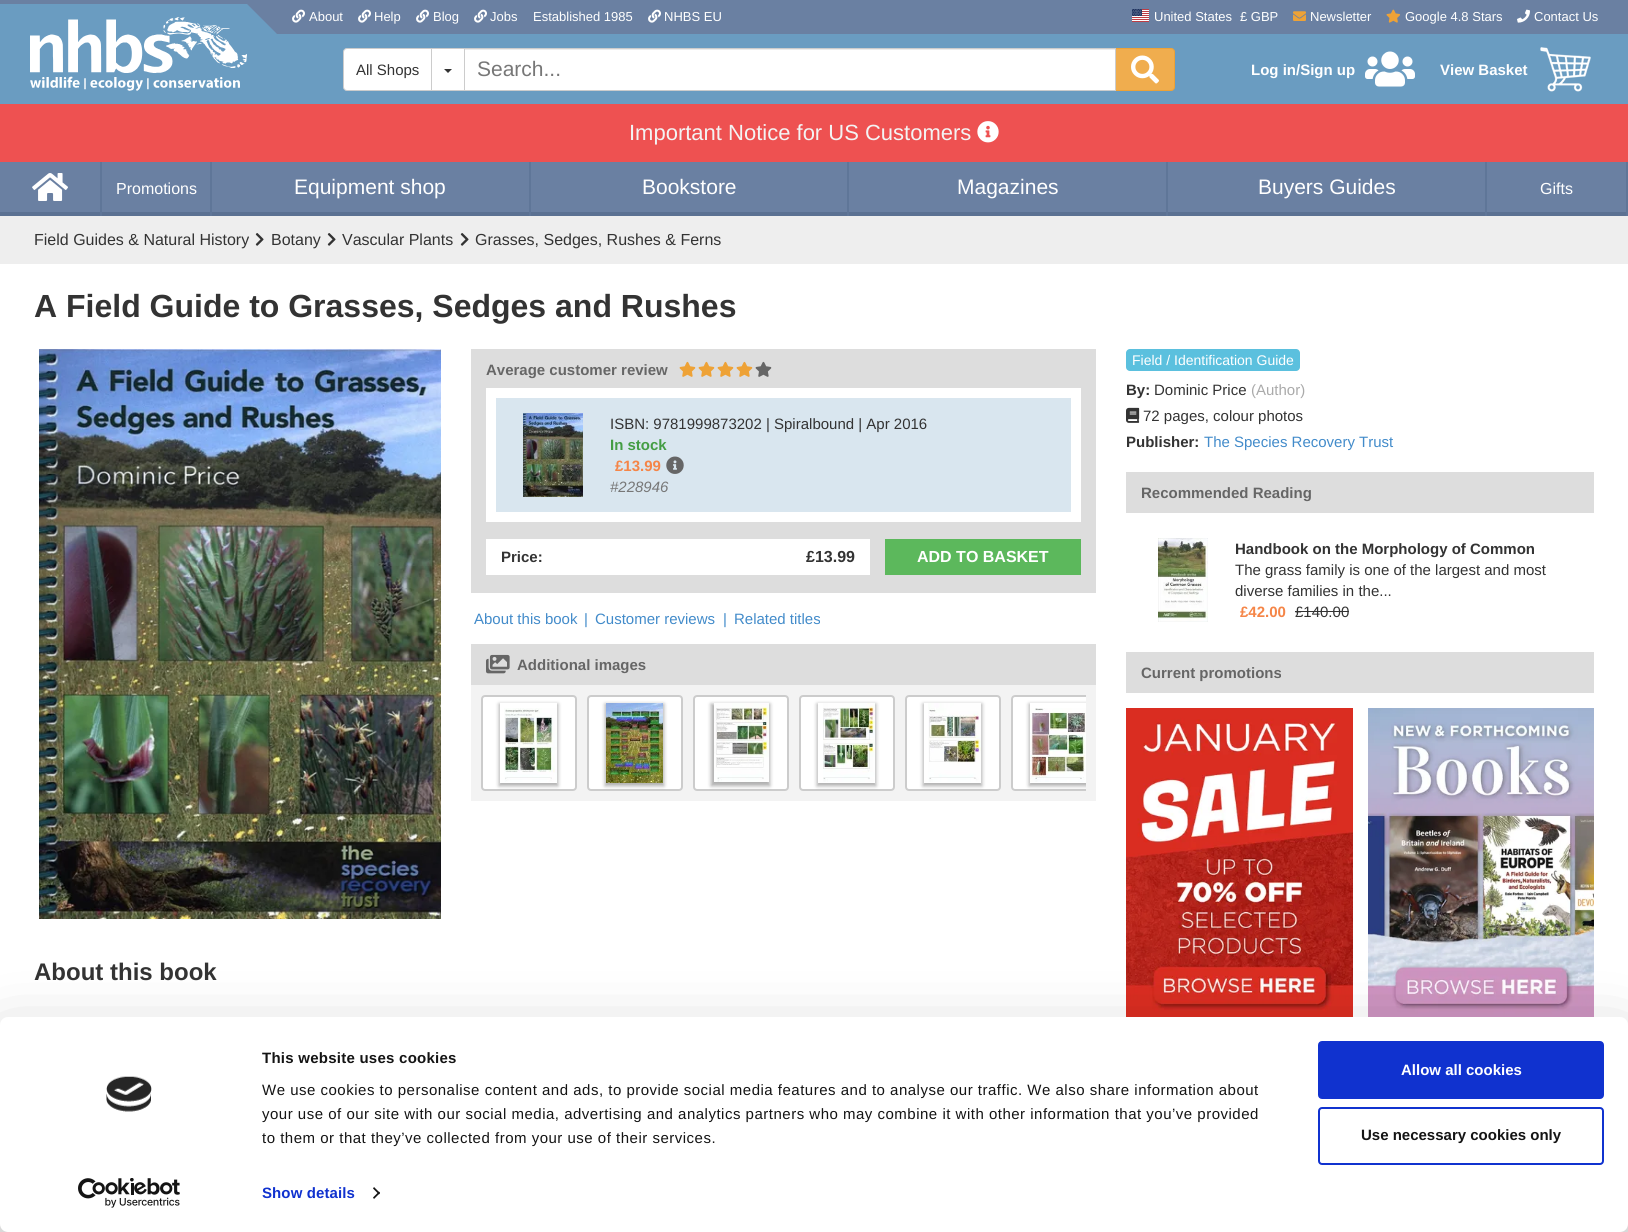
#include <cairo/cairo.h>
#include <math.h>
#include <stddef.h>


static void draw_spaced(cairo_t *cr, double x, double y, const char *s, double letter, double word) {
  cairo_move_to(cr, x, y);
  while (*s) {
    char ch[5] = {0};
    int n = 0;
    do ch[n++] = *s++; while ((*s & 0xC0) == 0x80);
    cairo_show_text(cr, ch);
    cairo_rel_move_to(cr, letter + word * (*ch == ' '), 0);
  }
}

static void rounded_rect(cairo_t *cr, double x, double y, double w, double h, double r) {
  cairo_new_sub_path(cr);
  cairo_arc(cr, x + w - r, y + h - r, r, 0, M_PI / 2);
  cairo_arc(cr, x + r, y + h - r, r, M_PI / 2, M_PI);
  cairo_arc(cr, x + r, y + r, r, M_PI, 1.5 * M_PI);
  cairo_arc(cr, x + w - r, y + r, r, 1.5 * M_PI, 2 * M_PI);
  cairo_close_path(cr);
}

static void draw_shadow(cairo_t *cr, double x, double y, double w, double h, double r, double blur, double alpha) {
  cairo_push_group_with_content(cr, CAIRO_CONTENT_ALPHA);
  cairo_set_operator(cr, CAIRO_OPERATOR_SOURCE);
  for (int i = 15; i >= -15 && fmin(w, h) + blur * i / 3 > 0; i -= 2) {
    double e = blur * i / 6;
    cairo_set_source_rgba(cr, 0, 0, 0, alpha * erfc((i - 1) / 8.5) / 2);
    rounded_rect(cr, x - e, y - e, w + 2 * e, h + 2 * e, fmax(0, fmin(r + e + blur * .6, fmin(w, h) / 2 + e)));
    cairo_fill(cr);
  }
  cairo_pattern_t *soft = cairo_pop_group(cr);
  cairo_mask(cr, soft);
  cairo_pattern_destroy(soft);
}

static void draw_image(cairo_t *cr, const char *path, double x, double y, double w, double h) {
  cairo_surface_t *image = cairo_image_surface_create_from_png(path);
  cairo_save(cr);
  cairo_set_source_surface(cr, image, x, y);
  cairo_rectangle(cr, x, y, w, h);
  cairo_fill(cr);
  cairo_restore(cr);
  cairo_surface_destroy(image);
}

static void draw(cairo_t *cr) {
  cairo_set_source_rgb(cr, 1, 1, 1);
  cairo_paint(cr);
  cairo_set_source_rgb(cr, 106 / 255.0, 156 / 255.0, 193 / 255.0);
  cairo_rectangle(cr, 0, 4, 1628, 100);
  cairo_fill(cr);
  cairo_set_source_rgb(cr, 106 / 255.0, 128 / 255.0, 162 / 255.0);
  cairo_rectangle(cr, 0, 0, 1628, 4);
  cairo_fill(cr);
  draw_image(cr, "images/1.png", 30, 17, 217, 74);
  cairo_new_path(cr);
  cairo_move_to(cr, 247, 4);
  cairo_line_to(cr, 277, 4);
  cairo_line_to(cr, 277, 34);
  cairo_close_path(cr);
  cairo_fill(cr);
  cairo_rectangle(cr, 277, 4, 1351, 30);
  cairo_fill(cr);
  draw_image(cr, "images/2.png", 292, 9, 13, 14);
  draw_image(cr, "images/2.png", 358, 9, 13, 14);
  draw_image(cr, "images/2.png", 416, 9, 13, 14);
  draw_image(cr, "images/2.png", 474, 9, 13, 14);
  draw_image(cr, "images/2.png", 648, 9, 13, 14);
  draw_image(cr, "images/3.png", 1132, 9, 17, 13);
  draw_image(cr, "images/4.png", 1293, 11, 13, 10);
  draw_image(cr, "images/5.png", 1386, 9, 15, 14);
  draw_image(cr, "images/6.png", 1517, 9, 13, 14);
  cairo_set_source_rgb(cr, 1, 1, 1);
  cairo_new_path(cr);
  cairo_move_to(cr, 347, 48.5);
  cairo_line_to(cr, 432.5, 48.5);
  cairo_line_to(cr, 432.5, 90.5);
  cairo_line_to(cr, 347, 90.5);
  cairo_curve_to(cr, 345, 90.5, 343.5, 89, 343.5, 87);
  cairo_line_to(cr, 343.5, 52);
  cairo_curve_to(cr, 343.5, 50, 345, 48.5, 347, 48.5);
  cairo_close_path(cr);
  cairo_fill_preserve(cr);
  cairo_set_source_rgb(cr, 204 / 255.0, 204 / 255.0, 204 / 255.0);
  cairo_set_line_width(cr, 1);
  cairo_stroke(cr);
  cairo_set_source_rgb(cr, 1, 1, 1);
  cairo_rectangle(cr, 431.5, 48.5, 33, 42);
  cairo_fill_preserve(cr);
  cairo_set_source_rgb(cr, 204 / 255.0, 204 / 255.0, 204 / 255.0);
  cairo_stroke(cr);
  cairo_set_source_rgb(cr, 51 / 255.0, 51 / 255.0, 51 / 255.0);
  cairo_new_path(cr);
  cairo_move_to(cr, 444, 69);
  cairo_line_to(cr, 452, 69);
  cairo_line_to(cr, 448, 73);
  cairo_close_path(cr);
  cairo_fill(cr);
  cairo_set_source_rgb(cr, 1, 1, 1);
  cairo_rectangle(cr, 465, 50, 650, 40);
  cairo_fill(cr);
  cairo_set_source_rgb(cr, 236 / 255.0, 236 / 255.0, 236 / 255.0);
  cairo_rectangle(cr, 465, 49, 650, 1);
  cairo_fill(cr);
  cairo_set_source_rgb(cr, 240 / 255.0, 173 / 255.0, 78 / 255.0);
  cairo_new_path(cr);
  cairo_move_to(cr, 1115.5, 48.5);
  cairo_line_to(cr, 1171, 48.5);
  cairo_curve_to(cr, 1173, 48.5, 1174.5, 50, 1174.5, 52);
  cairo_line_to(cr, 1174.5, 87);
  cairo_curve_to(cr, 1174.5, 89, 1173, 90.5, 1171, 90.5);
  cairo_line_to(cr, 1115.5, 90.5);
  cairo_close_path(cr);
  cairo_fill_preserve(cr);
  cairo_set_source_rgb(cr, 238 / 255.0, 162 / 255.0, 54 / 255.0);
  cairo_stroke(cr);
  cairo_rectangle(cr, 464.5, 48.5, 651, 42);
  cairo_set_source_rgb(cr, 204 / 255.0, 204 / 255.0, 204 / 255.0);
  cairo_stroke(cr);
  draw_image(cr, "images/7.png", 1131, 55, 28, 29);
  draw_image(cr, "images/8.png", 1365, 51, 50, 36);
  draw_image(cr, "images/9.png", 1540, 47, 51, 45);
  cairo_set_source_rgb(cr, 238 / 255.0, 81 / 255.0, 81 / 255.0);
  cairo_rectangle(cr, 0, 104, 1628, 58);
  cairo_fill(cr);
  draw_image(cr, "images/10.png", 977, 121, 22, 22);
  cairo_set_source_rgb(cr, 91 / 255.0, 113 / 255.0, 146 / 255.0);
  cairo_rectangle(cr, 0, 212, 1628, 4);
  cairo_fill(cr);
  cairo_set_source_rgb(cr, 106 / 255.0, 128 / 255.0, 162 / 255.0);
  cairo_rectangle(cr, 0, 162, 1626, 50);
  cairo_fill(cr);
  cairo_set_source_rgb(cr, 95 / 255.0, 118 / 255.0, 152 / 255.0);
  cairo_rectangle(cr, 210, 162, 2, 54);
  cairo_fill(cr);
  draw_image(cr, "images/11.png", 32, 173, 36, 28);
  cairo_rectangle(cr, 100, 162, 2, 54);
  cairo_fill(cr);
  cairo_rectangle(cr, 529, 162, 2, 54);
  cairo_fill(cr);
  cairo_rectangle(cr, 847, 162, 2, 54);
  cairo_fill(cr);
  cairo_rectangle(cr, 1166, 162, 2, 54);
  cairo_fill(cr);
  cairo_rectangle(cr, 1485, 162, 2, 54);
  cairo_fill(cr);
  cairo_rectangle(cr, 1626, 162, 2, 54);
  cairo_fill(cr);
  cairo_set_source_rgb(cr, 238 / 255.0, 238 / 255.0, 238 / 255.0);
  cairo_rectangle(cr, 0, 216, 1628, 48);
  cairo_fill(cr);
  draw_image(cr, "images/12.png", 255, 233, 9, 13);
  draw_image(cr, "images/12.png", 327, 233, 9, 13);
  draw_image(cr, "images/12.png", 460, 233, 9, 13);
  draw_image(cr, "images/13.png", 39, 349, 402, 570);
  cairo_set_source_rgb(cr, 221 / 255.0, 221 / 255.0, 221 / 255.0);
  cairo_rectangle(cr, 471, 349, 625, 244);
  cairo_fill(cr);
  draw_image(cr, "images/14.png", 679, 361, 17, 16);
  draw_image(cr, "images/14.png", 698, 361, 17, 16);
  draw_image(cr, "images/14.png", 717, 361, 17, 16);
  draw_image(cr, "images/14.png", 736, 361, 17, 16);
  draw_image(cr, "images/15.png", 755, 361, 17, 16);
  cairo_set_source_rgb(cr, 1, 1, 1);
  cairo_rectangle(cr, 486, 388, 595, 134);
  cairo_fill(cr);
  cairo_set_source_rgb(cr, 217 / 255.0, 230 / 255.0, 239 / 255.0);
  cairo_rectangle(cr, 496, 398, 575, 114);
  cairo_fill(cr);
  draw_image(cr, "images/16.png", 523, 413, 60, 84);
  draw_image(cr, "images/17.png", 666, 456, 18, 18);
  cairo_set_source_rgb(cr, 1, 1, 1);
  cairo_rectangle(cr, 486, 539, 384, 36);
  cairo_fill(cr);
  cairo_set_source_rgb(cr, 92 / 255.0, 184 / 255.0, 92 / 255.0);
  cairo_rectangle(cr, 885, 539, 196, 36);
  cairo_fill(cr);
  cairo_set_source_rgb(cr, 221 / 255.0, 221 / 255.0, 221 / 255.0);
  cairo_rectangle(cr, 471, 644, 625, 41);
  cairo_fill(cr);
  draw_image(cr, "images/18.png", 486, 654, 24, 20);
  cairo_set_source_rgb(cr, 243 / 255.0, 243 / 255.0, 243 / 255.0);
  cairo_rectangle(cr, 471, 685, 625, 116);
  cairo_fill(cr);
  cairo_set_source_rgb(cr, 1, 1, 1);
  rounded_rect(cr, 482, 696, 94, 94, 3);
  cairo_fill_preserve(cr);
  cairo_set_source_rgb(cr, 204 / 255.0, 204 / 255.0, 204 / 255.0);
  cairo_set_line_width(cr, 2);
  cairo_stroke(cr);
  cairo_save(cr);
  cairo_set_fill_rule(cr, CAIRO_FILL_RULE_EVEN_ODD);
  cairo_new_path(cr);
  cairo_move_to(cr, 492, 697);
  cairo_line_to(cr, 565, 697);
  cairo_line_to(cr, 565, 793);
  cairo_line_to(cr, 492, 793);
  cairo_close_path(cr);
  cairo_move_to(cr, 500, 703);
  cairo_line_to(cr, 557, 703);
  cairo_line_to(cr, 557, 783);
  cairo_line_to(cr, 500, 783);
  cairo_close_path(cr);
  cairo_clip(cr);
  cairo_set_source_rgb(cr, 0, 0, 0);
  draw_shadow(cr, 499, 704, 59, 82, 0, 2, 0.32);
  cairo_restore(cr);
  draw_image(cr, "images/19.png", 504, 708, 53, 74);
  cairo_set_source_rgb(cr, 1, 1, 1);
  rounded_rect(cr, 588, 696, 94, 94, 3);
  cairo_fill_preserve(cr);
  cairo_set_source_rgb(cr, 204 / 255.0, 204 / 255.0, 204 / 255.0);
  cairo_stroke(cr);
  cairo_set_source_rgb(cr, 0, 0, 0);
  draw_shadow(cr, 605, 704, 59, 82, 0, 2, 0.32);
  draw_image(cr, "images/20.png", 606, 703, 57, 80);
  cairo_set_source_rgb(cr, 1, 1, 1);
  rounded_rect(cr, 694, 696, 94, 94, 3);
  cairo_fill_preserve(cr);
  cairo_set_source_rgb(cr, 204 / 255.0, 204 / 255.0, 204 / 255.0);
  cairo_stroke(cr);
  cairo_set_source_rgb(cr, 0, 0, 0);
  draw_shadow(cr, 711, 704, 59, 82, 0, 2, 0.32);
  draw_image(cr, "images/21.png", 714, 703, 55, 79);
  cairo_set_source_rgb(cr, 1, 1, 1);
  rounded_rect(cr, 800, 696, 94, 94, 3);
  cairo_fill_preserve(cr);
  cairo_set_source_rgb(cr, 204 / 255.0, 204 / 255.0, 204 / 255.0);
  cairo_stroke(cr);
  cairo_save(cr);
  cairo_set_fill_rule(cr, CAIRO_FILL_RULE_EVEN_ODD);
  cairo_new_path(cr);
  cairo_move_to(cr, 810, 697);
  cairo_line_to(cr, 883, 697);
  cairo_line_to(cr, 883, 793);
  cairo_line_to(cr, 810, 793);
  cairo_close_path(cr);
  cairo_move_to(cr, 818, 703);
  cairo_line_to(cr, 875, 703);
  cairo_line_to(cr, 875, 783);
  cairo_line_to(cr, 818, 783);
  cairo_close_path(cr);
  cairo_clip(cr);
  cairo_set_source_rgb(cr, 0, 0, 0);
  draw_shadow(cr, 817, 704, 59, 82, 0, 2, 0.32);
  cairo_restore(cr);
  draw_image(cr, "images/22.png", 823, 703, 52, 79);
  cairo_set_source_rgb(cr, 1, 1, 1);
  rounded_rect(cr, 906, 696, 94, 94, 3);
  cairo_fill_preserve(cr);
  cairo_set_source_rgb(cr, 204 / 255.0, 204 / 255.0, 204 / 255.0);
  cairo_stroke(cr);
  cairo_save(cr);
  cairo_set_fill_rule(cr, CAIRO_FILL_RULE_EVEN_ODD);
  cairo_new_path(cr);
  cairo_move_to(cr, 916, 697);
  cairo_line_to(cr, 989, 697);
  cairo_line_to(cr, 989, 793);
  cairo_line_to(cr, 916, 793);
  cairo_close_path(cr);
  cairo_move_to(cr, 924, 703);
  cairo_line_to(cr, 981, 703);
  cairo_line_to(cr, 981, 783);
  cairo_line_to(cr, 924, 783);
  cairo_close_path(cr);
  cairo_clip(cr);
  cairo_set_source_rgb(cr, 0, 0, 0);
  draw_shadow(cr, 923, 704, 59, 82, 0, 2, 0.32);
  cairo_restore(cr);
  draw_image(cr, "images/23.png", 928, 703, 53, 79);
  cairo_set_source_rgb(cr, 1, 1, 1);
  cairo_new_path(cr);
  cairo_move_to(cr, 1015, 695);
  cairo_line_to(cr, 1086, 695);
  cairo_line_to(cr, 1086, 791);
  cairo_line_to(cr, 1015, 791);
  cairo_curve_to(cr, 1013, 791, 1011, 789, 1011, 787);
  cairo_line_to(cr, 1011, 699);
  cairo_curve_to(cr, 1011, 697, 1013, 695, 1015, 695);
  cairo_close_path(cr);
  cairo_fill(cr);
  cairo_save(cr);
  cairo_rectangle(cr, 481, 695, 605, 96);
  cairo_clip(cr);
  rounded_rect(cr, 1012, 696, 94, 94, 3);
  cairo_set_source_rgb(cr, 204 / 255.0, 204 / 255.0, 204 / 255.0);
  cairo_stroke(cr);
  cairo_restore(cr);
  cairo_save(cr);
  cairo_rectangle(cr, 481, 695, 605, 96);
  cairo_clip(cr);
  cairo_set_fill_rule(cr, CAIRO_FILL_RULE_EVEN_ODD);
  cairo_new_path(cr);
  cairo_move_to(cr, 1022, 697);
  cairo_line_to(cr, 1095, 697);
  cairo_line_to(cr, 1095, 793);
  cairo_line_to(cr, 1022, 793);
  cairo_close_path(cr);
  cairo_move_to(cr, 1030, 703);
  cairo_line_to(cr, 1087, 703);
  cairo_line_to(cr, 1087, 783);
  cairo_line_to(cr, 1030, 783);
  cairo_close_path(cr);
  cairo_clip(cr);
  cairo_set_source_rgb(cr, 0, 0, 0);
  draw_shadow(cr, 1029, 704, 59, 82, 0, 2, 0.32);
  cairo_restore(cr);
  draw_image(cr, "images/24.png", 1030, 708, 56, 74);
  cairo_set_source_rgb(cr, 91 / 255.0, 192 / 255.0, 222 / 255.0);
  rounded_rect(cr, 1126, 349, 174, 22, 4);
  cairo_fill(cr);
  draw_image(cr, "images/25.png", 1126, 407, 14, 16);
  cairo_set_source_rgb(cr, 221 / 255.0, 221 / 255.0, 221 / 255.0);
  cairo_rectangle(cr, 1126, 472, 468, 41);
  cairo_fill(cr);
  draw_image(cr, "images/26.png", 1158, 538, 50, 84);
  cairo_set_source_rgb(cr, 51 / 255.0, 51 / 255.0, 51 / 255.0);
  cairo_rectangle(cr, 1295, 611, 54, 1);
  cairo_fill(cr);
  cairo_set_source_rgb(cr, 221 / 255.0, 221 / 255.0, 221 / 255.0);
  cairo_rectangle(cr, 1126, 652, 468, 41);
  cairo_fill(cr);
  draw_image(cr, "images/27.png", 1126, 708, 227, 309);
  draw_image(cr, "images/28.png", 1368, 708, 226, 309);
  cairo_set_source_rgb(cr, 0, 0, 0);
  draw_shadow(cr, 0, 1047, 1628, 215, 8, 35, 0.3);
  cairo_set_source_rgb(cr, 1, 1, 1);
  rounded_rect(cr, 0, 1017, 1628, 215, 8);
  cairo_fill(cr);
  draw_image(cr, "images/29.png", 106, 1076, 46, 36);
  draw_image(cr, "images/30.png", 78, 1178, 102, 30);
  cairo_set_source_rgb(cr, 20 / 255.0, 20 / 255.0, 20 / 255.0);
  cairo_new_path(cr);
  cairo_move_to(cr, 374, 1187);
  cairo_line_to(cr, 380, 1193);
  cairo_line_to(cr, 379, 1194.5);
  cairo_line_to(cr, 373, 1188.5);
  cairo_close_path(cr);
  cairo_fill(cr);
  cairo_new_path(cr);
  cairo_move_to(cr, 379, 1191.5);
  cairo_line_to(cr, 380, 1193);
  cairo_line_to(cr, 374, 1199);
  cairo_line_to(cr, 373, 1197.5);
  cairo_close_path(cr);
  cairo_fill(cr);
  cairo_set_source_rgb(cr, 16 / 255.0, 50 / 255.0, 207 / 255.0);
  rounded_rect(cr, 1319, 1042, 284, 56, 3);
  cairo_fill_preserve(cr);
  cairo_stroke(cr);
  rounded_rect(cr, 1319, 1108, 284, 56, 3);
  cairo_stroke(cr);
  cairo_select_font_face(cr, "Liberation Sans", CAIRO_FONT_SLANT_NORMAL, CAIRO_FONT_WEIGHT_NORMAL);
  cairo_set_font_size(cr, 13);
  cairo_set_source_rgb(cr, 1, 1, 1);
  cairo_move_to(cr, 309, 21);
  cairo_show_text(cr, "About");
  cairo_move_to(cr, 374, 21);
  cairo_show_text(cr, "Help");
  cairo_move_to(cr, 433, 21);
  cairo_show_text(cr, "Blog");
  cairo_move_to(cr, 490, 21);
  cairo_show_text(cr, "Jobs");
  cairo_move_to(cr, 533, 21);
  cairo_show_text(cr, "Established 1985");
  cairo_move_to(cr, 664, 21);
  cairo_show_text(cr, "NHBS EU");
  cairo_move_to(cr, 1154, 21);
  cairo_show_text(cr, "United States");
  cairo_move_to(cr, 1240, 21);
  cairo_show_text(cr, "£ GBP");
  cairo_move_to(cr, 1310, 21);
  cairo_show_text(cr, "Newsletter");
  cairo_move_to(cr, 1405, 21);
  cairo_show_text(cr, "Google 4.8 Stars");
  cairo_move_to(cr, 1534, 21);
  cairo_show_text(cr, "Contact Us");
  cairo_set_font_size(cr, 15);
  cairo_set_source_rgb(cr, 51 / 255.0, 51 / 255.0, 51 / 255.0);
  cairo_move_to(cr, 356, 75);
  cairo_show_text(cr, "All Shops");
  cairo_set_font_size(cr, 21);
  cairo_set_source_rgb(cr, 119 / 255.0, 119 / 255.0, 119 / 255.0);
  cairo_move_to(cr, 477, 76);
  cairo_show_text(cr, "Search...");
  cairo_select_font_face(cr, "Liberation Sans", CAIRO_FONT_SLANT_NORMAL, CAIRO_FONT_WEIGHT_BOLD);
  cairo_set_font_size(cr, 15);
  cairo_set_source_rgb(cr, 1, 1, 1);
  cairo_move_to(cr, 1251, 75);
  cairo_show_text(cr, "Log in/Sign up");
  cairo_move_to(cr, 1440, 75);
  cairo_show_text(cr, "View Basket");
  cairo_select_font_face(cr, "Liberation Sans", CAIRO_FONT_SLANT_NORMAL, CAIRO_FONT_WEIGHT_NORMAL);
  cairo_set_font_size(cr, 22);
  cairo_set_source_rgb(cr, 243 / 255.0, 243 / 255.0, 243 / 255.0);
  cairo_move_to(cr, 629, 140);
  cairo_show_text(cr, "Important Notice for US Customers");
  cairo_set_font_size(cr, 16);
  cairo_set_source_rgb(cr, 1, 1, 1);
  cairo_move_to(cr, 116, 194);
  cairo_show_text(cr, "Promotions");
  cairo_set_font_size(cr, 21);
  cairo_move_to(cr, 294, 194);
  cairo_show_text(cr, "Equipment shop");
  cairo_move_to(cr, 642, 194);
  cairo_show_text(cr, "Bookstore");
  cairo_move_to(cr, 957, 194);
  cairo_show_text(cr, "Magazines");
  cairo_move_to(cr, 1258, 194);
  cairo_show_text(cr, "Buyers Guides");
  cairo_set_font_size(cr, 16);
  cairo_move_to(cr, 1540, 194);
  cairo_show_text(cr, "Gifts");
  cairo_set_source_rgb(cr, 51 / 255.0, 51 / 255.0, 51 / 255.0);
  cairo_move_to(cr, 34, 245);
  cairo_show_text(cr, "Field Guides & Natural History");
  cairo_move_to(cr, 271, 245);
  cairo_show_text(cr, "Botany");
  cairo_move_to(cr, 342, 245);
  cairo_show_text(cr, "Vascular Plants");
  cairo_move_to(cr, 475, 245);
  cairo_show_text(cr, "Grasses, Sedges, Rushes & Ferns");
  cairo_select_font_face(cr, "Liberation Sans", CAIRO_FONT_SLANT_NORMAL, CAIRO_FONT_WEIGHT_BOLD);
  cairo_set_font_size(cr, 32);
  cairo_move_to(cr, 34, 317);
  cairo_show_text(cr, "A Field Guide to Grasses, Sedges and Rushes");
  cairo_set_font_size(cr, 15);
  cairo_set_source_rgb(cr, 102 / 255.0, 102 / 255.0, 102 / 255.0);
  cairo_move_to(cr, 486, 375);
  cairo_show_text(cr, "Average customer review");
  cairo_select_font_face(cr, "Liberation Sans", CAIRO_FONT_SLANT_NORMAL, CAIRO_FONT_WEIGHT_NORMAL);
  cairo_set_source_rgb(cr, 51 / 255.0, 51 / 255.0, 51 / 255.0);
  cairo_move_to(cr, 610, 429);
  cairo_show_text(cr, "ISBN: 9781999873202 | Spiralbound | Apr 2016");
  cairo_select_font_face(cr, "Liberation Sans", CAIRO_FONT_SLANT_NORMAL, CAIRO_FONT_WEIGHT_BOLD);
  cairo_set_source_rgb(cr, 68 / 255.0, 157 / 255.0, 68 / 255.0);
  cairo_move_to(cr, 610, 450);
  cairo_show_text(cr, "In stock");
  cairo_set_source_rgb(cr, 245 / 255.0, 133 / 255.0, 71 / 255.0);
  cairo_move_to(cr, 615, 471);
  cairo_show_text(cr, "£13.99");
  cairo_select_font_face(cr, "Liberation Sans", CAIRO_FONT_SLANT_ITALIC, CAIRO_FONT_WEIGHT_NORMAL);
  cairo_set_source_rgb(cr, 119 / 255.0, 119 / 255.0, 119 / 255.0);
  cairo_move_to(cr, 610, 492);
  cairo_show_text(cr, "#228946");
  cairo_select_font_face(cr, "Liberation Sans", CAIRO_FONT_SLANT_NORMAL, CAIRO_FONT_WEIGHT_BOLD);
  cairo_set_source_rgb(cr, 51 / 255.0, 51 / 255.0, 51 / 255.0);
  cairo_move_to(cr, 501, 562);
  cairo_show_text(cr, "Price:");
  cairo_set_font_size(cr, 16);
  cairo_move_to(cr, 806, 562);
  cairo_show_text(cr, "£13.99");
  cairo_set_source_rgb(cr, 1, 1, 1);
  cairo_move_to(cr, 917, 562);
  cairo_show_text(cr, "ADD TO BASKET");
  cairo_select_font_face(cr, "Liberation Sans", CAIRO_FONT_SLANT_NORMAL, CAIRO_FONT_WEIGHT_NORMAL);
  cairo_set_font_size(cr, 15);
  cairo_set_source_rgb(cr, 66 / 255.0, 139 / 255.0, 202 / 255.0);
  cairo_move_to(cr, 474, 624);
  cairo_show_text(cr, "About this book");
  cairo_move_to(cr, 584, 624);
  cairo_show_text(cr, "|");
  cairo_move_to(cr, 595, 624);
  cairo_show_text(cr, "Customer reviews");
  cairo_move_to(cr, 723, 624);
  cairo_show_text(cr, "|");
  cairo_move_to(cr, 734, 624);
  cairo_show_text(cr, "Related titles");
  cairo_select_font_face(cr, "Liberation Sans", CAIRO_FONT_SLANT_NORMAL, CAIRO_FONT_WEIGHT_BOLD);
  cairo_set_source_rgb(cr, 102 / 255.0, 102 / 255.0, 102 / 255.0);
  cairo_move_to(cr, 517, 670);
  cairo_show_text(cr, "Additional images");
  cairo_set_font_size(cr, 24);
  cairo_set_source_rgb(cr, 51 / 255.0, 51 / 255.0, 51 / 255.0);
  cairo_move_to(cr, 34, 980);
  cairo_show_text(cr, "About this book");
  cairo_select_font_face(cr, "Liberation Sans", CAIRO_FONT_SLANT_NORMAL, CAIRO_FONT_WEIGHT_NORMAL);
  cairo_set_font_size(cr, 14);
  cairo_set_source_rgb(cr, 1, 1, 1);
  cairo_move_to(cr, 1132, 365);
  cairo_show_text(cr, "Field / Identification Guide");
  cairo_select_font_face(cr, "Liberation Sans", CAIRO_FONT_SLANT_NORMAL, CAIRO_FONT_WEIGHT_BOLD);
  cairo_set_font_size(cr, 15);
  cairo_set_source_rgb(cr, 51 / 255.0, 51 / 255.0, 51 / 255.0);
  cairo_move_to(cr, 1126, 395);
  cairo_show_text(cr, "By:");
  cairo_select_font_face(cr, "Liberation Sans", CAIRO_FONT_SLANT_NORMAL, CAIRO_FONT_WEIGHT_NORMAL);
  cairo_move_to(cr, 1154, 395);
  cairo_show_text(cr, "Dominic Price");
  cairo_set_source_rgb(cr, 170 / 255.0, 170 / 255.0, 170 / 255.0);
  cairo_move_to(cr, 1251, 395);
  cairo_show_text(cr, "(Author)");
  cairo_set_source_rgb(cr, 51 / 255.0, 51 / 255.0, 51 / 255.0);
  cairo_move_to(cr, 1143, 421);
  cairo_show_text(cr, "72 pages, colour photos");
  cairo_select_font_face(cr, "Liberation Sans", CAIRO_FONT_SLANT_NORMAL, CAIRO_FONT_WEIGHT_BOLD);
  cairo_move_to(cr, 1126, 447);
  cairo_show_text(cr, "Publisher:");
  cairo_select_font_face(cr, "Liberation Sans", CAIRO_FONT_SLANT_NORMAL, CAIRO_FONT_WEIGHT_NORMAL);
  cairo_set_source_rgb(cr, 66 / 255.0, 139 / 255.0, 202 / 255.0);
  cairo_move_to(cr, 1204, 447);
  cairo_show_text(cr, "The Species Recovery Trust");
  cairo_select_font_face(cr, "Liberation Sans", CAIRO_FONT_SLANT_NORMAL, CAIRO_FONT_WEIGHT_BOLD);
  cairo_set_source_rgb(cr, 102 / 255.0, 102 / 255.0, 102 / 255.0);
  cairo_move_to(cr, 1141, 498);
  cairo_show_text(cr, "Recommended Reading");
  cairo_set_source_rgb(cr, 51 / 255.0, 51 / 255.0, 51 / 255.0);
  cairo_move_to(cr, 1235, 554);
  cairo_show_text(cr, "Handbook on the Morphology of Common");
  cairo_select_font_face(cr, "Liberation Sans", CAIRO_FONT_SLANT_NORMAL, CAIRO_FONT_WEIGHT_NORMAL);
  cairo_move_to(cr, 1235, 575);
  cairo_show_text(cr, "The grass family is one of the largest and most");
  cairo_move_to(cr, 1235, 596);
  cairo_show_text(cr, "diverse families in the...");
  cairo_select_font_face(cr, "Liberation Sans", CAIRO_FONT_SLANT_NORMAL, CAIRO_FONT_WEIGHT_BOLD);
  cairo_set_source_rgb(cr, 245 / 255.0, 133 / 255.0, 71 / 255.0);
  cairo_move_to(cr, 1240, 617);
  cairo_show_text(cr, "£42.00");
  cairo_select_font_face(cr, "Liberation Sans", CAIRO_FONT_SLANT_NORMAL, CAIRO_FONT_WEIGHT_NORMAL);
  cairo_set_source_rgb(cr, 51 / 255.0, 51 / 255.0, 51 / 255.0);
  cairo_move_to(cr, 1295, 617);
  cairo_show_text(cr, "£140.00");
  cairo_select_font_face(cr, "Liberation Sans", CAIRO_FONT_SLANT_NORMAL, CAIRO_FONT_WEIGHT_BOLD);
  cairo_set_source_rgb(cr, 102 / 255.0, 102 / 255.0, 102 / 255.0);
  cairo_move_to(cr, 1141, 678);
  cairo_show_text(cr, "Current promotions");
  cairo_set_source_rgb(cr, 20 / 255.0, 20 / 255.0, 20 / 255.0);
  draw_spaced(cr, 262, 1063, "This website uses cookies", 0.25, 0);
  cairo_select_font_face(cr, "Liberation Sans", CAIRO_FONT_SLANT_NORMAL, CAIRO_FONT_WEIGHT_NORMAL);
  draw_spaced(cr, 262, 1095, "We use cookies to personalise content and ads, to provide social media features and to analyse our traffic. We also share information about", 0.5, 0);
  draw_spaced(cr, 262, 1119, "your use of our site with our social media, advertising and analytics partners who may combine it with other information that you’ve provided", 0.5, 0);
  draw_spaced(cr, 262, 1143, "to them or that they’ve collected from your use of their services.", 0.5, 0);
  cairo_select_font_face(cr, "Liberation Sans", CAIRO_FONT_SLANT_NORMAL, CAIRO_FONT_WEIGHT_BOLD);
  cairo_set_source_rgb(cr, 16 / 255.0, 50 / 255.0, 207 / 255.0);
  draw_spaced(cr, 262, 1198, "Show details", 0.1, 0);
  cairo_set_source_rgb(cr, 1, 1, 1);
  cairo_move_to(cr, 1401, 1075);
  cairo_show_text(cr, "Allow all cookies");
  cairo_set_source_rgb(cr, 20 / 255.0, 20 / 255.0, 20 / 255.0);
  cairo_move_to(cr, 1361, 1140);
  cairo_show_text(cr, "Use necessary cookies only");
}

int main(void) {
  cairo_surface_t *surface = cairo_image_surface_create(CAIRO_FORMAT_RGB24, 1628, 1232);
  cairo_t *cr = cairo_create(surface);
  cairo_font_options_t *options = cairo_font_options_create();
  cairo_font_options_set_hint_metrics(options, CAIRO_HINT_METRICS_OFF);
  cairo_font_options_set_hint_style(options, CAIRO_HINT_STYLE_NONE);
  cairo_set_font_options(cr, options);
  cairo_set_miter_limit(cr, 4);
  draw(cr);
  cairo_surface_write_to_png(surface, "out.png");
  cairo_font_options_destroy(options);
  cairo_destroy(cr);
  cairo_surface_destroy(surface);
  return 0;
}
